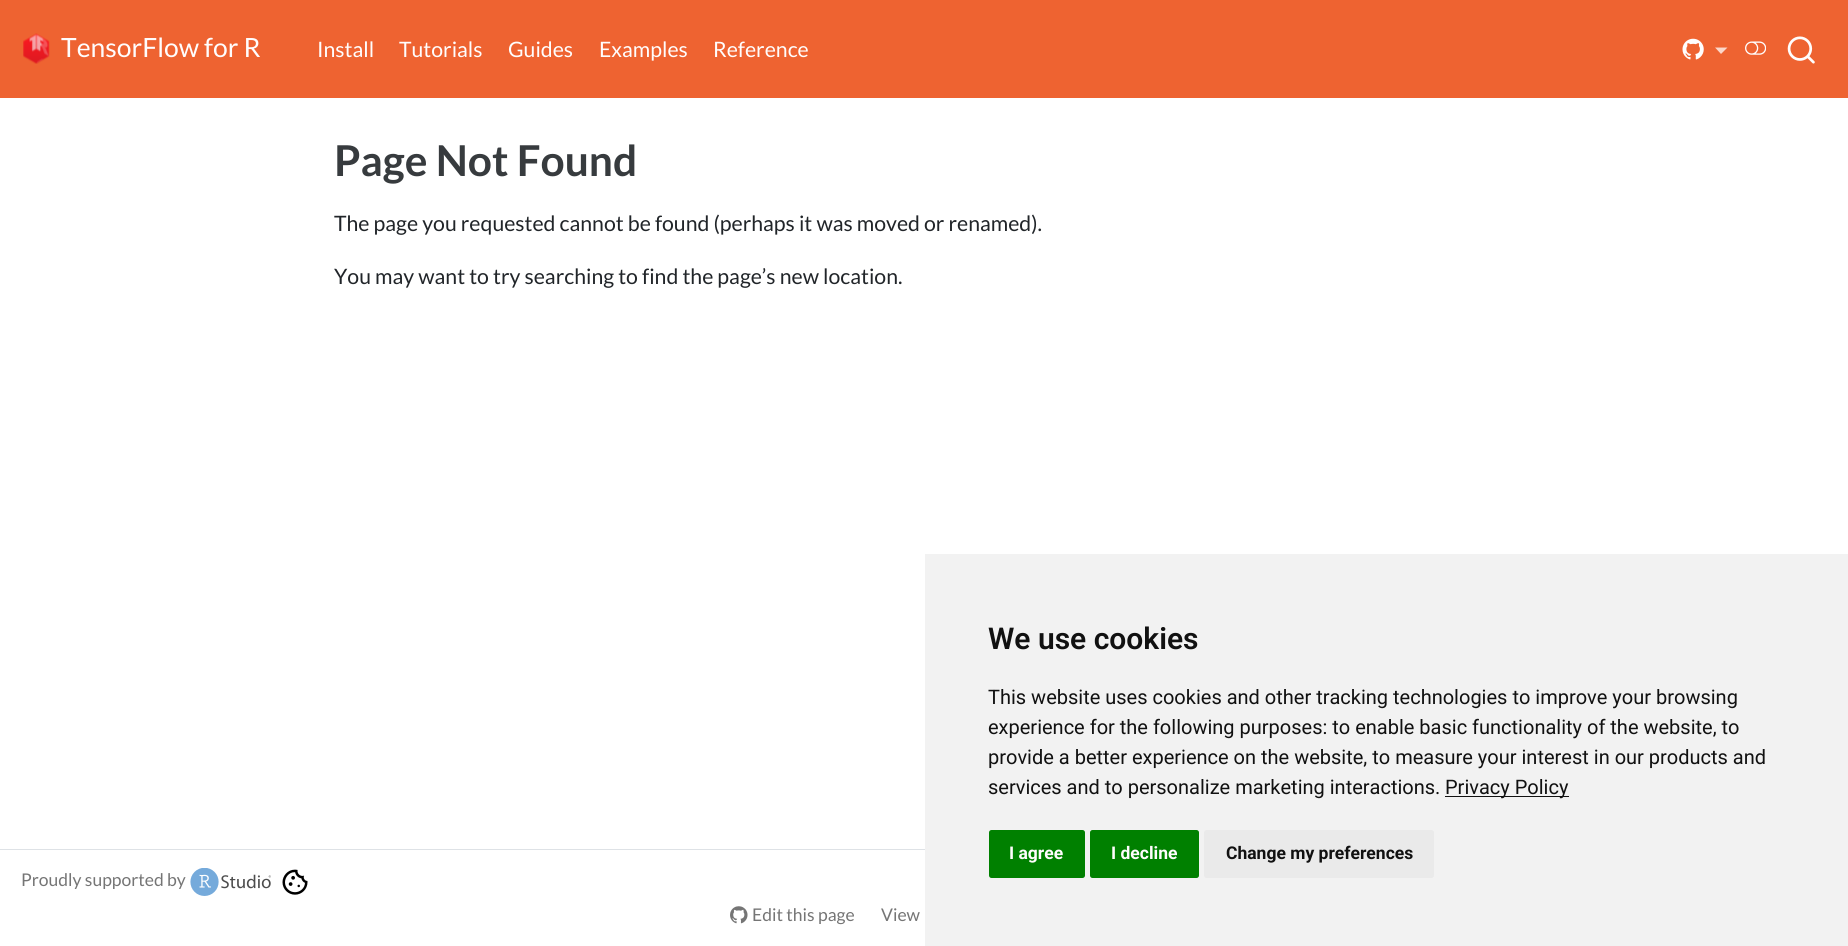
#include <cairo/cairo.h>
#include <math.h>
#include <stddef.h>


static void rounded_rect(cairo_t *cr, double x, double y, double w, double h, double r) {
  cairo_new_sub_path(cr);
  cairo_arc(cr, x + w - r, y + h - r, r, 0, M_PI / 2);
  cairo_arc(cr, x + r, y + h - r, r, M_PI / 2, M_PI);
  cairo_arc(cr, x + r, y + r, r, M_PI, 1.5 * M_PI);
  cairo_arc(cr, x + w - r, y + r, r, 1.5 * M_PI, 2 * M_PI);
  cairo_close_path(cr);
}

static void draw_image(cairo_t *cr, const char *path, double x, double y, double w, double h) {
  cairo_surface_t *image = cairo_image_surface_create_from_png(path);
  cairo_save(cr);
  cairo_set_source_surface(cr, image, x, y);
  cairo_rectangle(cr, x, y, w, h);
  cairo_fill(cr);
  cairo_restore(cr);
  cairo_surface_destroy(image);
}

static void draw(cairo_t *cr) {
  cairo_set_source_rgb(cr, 1, 1, 1);
  cairo_paint(cr);
  cairo_set_source_rgb(cr, 238 / 255.0, 99 / 255.0, 49 / 255.0);
  cairo_rectangle(cr, 0, 0, 1848, 98);
  cairo_fill(cr);
  draw_image(cr, "images/1.png", 23, 33, 27, 31);
  draw_image(cr, "images/2.png", 1682, 38, 22, 22);
  cairo_set_source_rgb(cr, 251 / 255.0, 215 / 255.0, 202 / 255.0);
  cairo_new_path(cr);
  cairo_move_to(cr, 1715, 47.5);
  cairo_line_to(cr, 1727.5, 47.5);
  cairo_line_to(cr, 1721, 54);
  cairo_close_path(cr);
  cairo_fill(cr);
  draw_image(cr, "images/3.png", 1745, 41, 21, 14);
  draw_image(cr, "images/4.png", 1787, 36, 28, 28);
  cairo_set_source_rgb(cr, 242 / 255.0, 242 / 255.0, 242 / 255.0);
  cairo_rectangle(cr, 925, 554, 923, 392);
  cairo_fill(cr);
  cairo_set_source_rgb(cr, 17 / 255.0, 17 / 255.0, 17 / 255.0);
  cairo_rectangle(cr, 1445, 796, 124, 1);
  cairo_fill(cr);
  cairo_set_source_rgb(cr, 0, 128 / 255.0, 0);
  rounded_rect(cr, 989, 830, 96, 48, 2.5);
  cairo_fill(cr);
  rounded_rect(cr, 1090, 830, 109, 48, 2.5);
  cairo_fill(cr);
  cairo_set_source_rgb(cr, 234 / 255.0, 234 / 255.0, 234 / 255.0);
  rounded_rect(cr, 1204, 830, 230, 48, 2.5);
  cairo_fill(cr);
  cairo_set_source_rgb(cr, 222 / 255.0, 226 / 255.0, 230 / 255.0);
  cairo_rectangle(cr, 0, 849, 925, 1);
  cairo_fill(cr);
  draw_image(cr, "images/5.png", 190, 868, 81, 28);
  draw_image(cr, "images/6.png", 282, 869, 26, 26);
  draw_image(cr, "images/7.png", 730, 906, 18, 18);
  cairo_select_font_face(cr, "Lato", CAIRO_FONT_SLANT_NORMAL, CAIRO_FONT_WEIGHT_NORMAL);
  cairo_set_font_size(cr, 26.5);
  cairo_set_source_rgb(cr, 1, 253 / 255.0, 253 / 255.0);
  cairo_move_to(cr, 61, 57);
  cairo_show_text(cr, "TensorFlow for R");
  cairo_set_font_size(cr, 21.25);
  cairo_move_to(cr, 317, 57);
  cairo_show_text(cr, "Install");
  cairo_move_to(cr, 399, 57);
  cairo_show_text(cr, "Tutorials");
  cairo_move_to(cr, 508, 57);
  cairo_show_text(cr, "Guides");
  cairo_move_to(cr, 599, 57);
  cairo_show_text(cr, "Examples");
  cairo_move_to(cr, 713, 57);
  cairo_show_text(cr, "Reference");
  cairo_select_font_face(cr, "Lato", CAIRO_FONT_SLANT_NORMAL, CAIRO_FONT_WEIGHT_BOLD);
  cairo_set_font_size(cr, 42.5);
  cairo_set_source_rgb(cr, 55 / 255.0, 59 / 255.0, 62 / 255.0);
  cairo_move_to(cr, 334, 176);
  cairo_show_text(cr, "Page Not Found");
  cairo_select_font_face(cr, "Lato", CAIRO_FONT_SLANT_NORMAL, CAIRO_FONT_WEIGHT_NORMAL);
  cairo_set_font_size(cr, 21.25);
  cairo_set_source_rgb(cr, 33 / 255.0, 37 / 255.0, 41 / 255.0);
  cairo_move_to(cr, 334, 231);
  cairo_show_text(cr, "The page you requested cannot be found (perhaps it was moved or renamed).");
  cairo_move_to(cr, 334, 284);
  cairo_show_text(cr, "You may want to try searching to find the page’s new location.");
  cairo_select_font_face(cr, "Roboto SemiBold", CAIRO_FONT_SLANT_NORMAL, CAIRO_FONT_WEIGHT_NORMAL);
  cairo_set_font_size(cr, 30);
  cairo_set_source_rgb(cr, 17 / 255.0, 17 / 255.0, 17 / 255.0);
  cairo_move_to(cr, 988, 649);
  cairo_show_text(cr, "We use cookies");
  cairo_select_font_face(cr, "Roboto", CAIRO_FONT_SLANT_NORMAL, CAIRO_FONT_WEIGHT_NORMAL);
  cairo_set_font_size(cr, 20);
  cairo_move_to(cr, 988, 704);
  cairo_show_text(cr, "This website uses cookies and other tracking technologies to improve your browsing");
  cairo_move_to(cr, 988, 734);
  cairo_show_text(cr, "experience for the following purposes: to enable basic functionality of the website, to");
  cairo_move_to(cr, 988, 764);
  cairo_show_text(cr, "provide a better experience on the website, to measure your interest in our products and");
  cairo_move_to(cr, 988, 794);
  cairo_show_text(cr, "services and to personalize marketing interactions.");
  cairo_move_to(cr, 1445, 794);
  cairo_show_text(cr, "Privacy Policy");
  cairo_select_font_face(cr, "Roboto", CAIRO_FONT_SLANT_NORMAL, CAIRO_FONT_WEIGHT_BOLD);
  cairo_set_font_size(cr, 17.5);
  cairo_set_source_rgb(cr, 1, 253 / 255.0, 253 / 255.0);
  cairo_move_to(cr, 1009, 859);
  cairo_show_text(cr, "I agree");
  cairo_move_to(cr, 1111, 859);
  cairo_show_text(cr, "I decline");
  cairo_set_source_rgb(cr, 17 / 255.0, 17 / 255.0, 17 / 255.0);
  cairo_move_to(cr, 1226, 859);
  cairo_show_text(cr, "Change my preferences");
  cairo_select_font_face(cr, "Lato", CAIRO_FONT_SLANT_NORMAL, CAIRO_FONT_WEIGHT_NORMAL);
  cairo_set_source_rgb(cr, 117 / 255.0, 117 / 255.0, 117 / 255.0);
  cairo_move_to(cr, 21, 886);
  cairo_show_text(cr, "Proudly supported by");
  cairo_move_to(cr, 752, 921);
  cairo_show_text(cr, "Edit this page");
  cairo_move_to(cr, 881, 921);
  cairo_show_text(cr, "View");
}

int main(void) {
  cairo_surface_t *surface = cairo_image_surface_create(CAIRO_FORMAT_RGB24, 1848, 946);
  cairo_t *cr = cairo_create(surface);
  cairo_font_options_t *options = cairo_font_options_create();
  cairo_font_options_set_hint_metrics(options, CAIRO_HINT_METRICS_OFF);
  cairo_font_options_set_hint_style(options, CAIRO_HINT_STYLE_NONE);
  cairo_set_font_options(cr, options);
  cairo_set_miter_limit(cr, 4);
  draw(cr);
  cairo_surface_write_to_png(surface, "out.png");
  cairo_font_options_destroy(options);
  cairo_destroy(cr);
  cairo_surface_destroy(surface);
  return 0;
}
